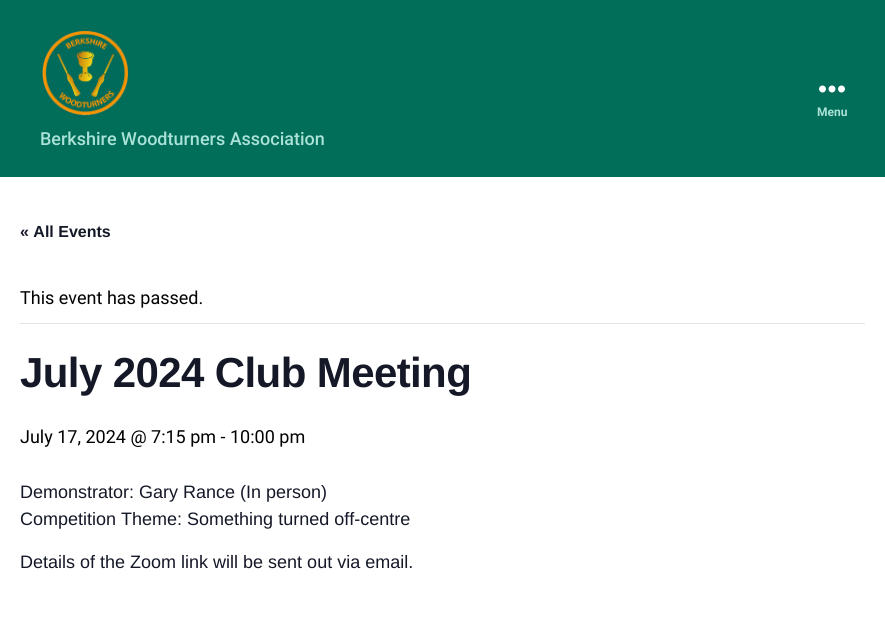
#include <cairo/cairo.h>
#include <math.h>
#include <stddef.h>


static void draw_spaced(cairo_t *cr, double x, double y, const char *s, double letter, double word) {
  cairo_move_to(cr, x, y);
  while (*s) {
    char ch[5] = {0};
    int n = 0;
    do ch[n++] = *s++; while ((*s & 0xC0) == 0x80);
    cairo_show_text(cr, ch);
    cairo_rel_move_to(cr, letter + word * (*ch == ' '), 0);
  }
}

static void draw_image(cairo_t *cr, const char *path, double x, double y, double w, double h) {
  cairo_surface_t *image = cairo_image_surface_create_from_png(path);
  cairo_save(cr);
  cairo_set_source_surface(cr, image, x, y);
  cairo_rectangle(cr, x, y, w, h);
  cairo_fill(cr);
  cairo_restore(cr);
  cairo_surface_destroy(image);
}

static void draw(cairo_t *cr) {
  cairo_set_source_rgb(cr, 1, 1, 1);
  cairo_paint(cr);
  cairo_set_source_rgb(cr, 0, 110 / 255.0, 89 / 255.0);
  cairo_rectangle(cr, 0, 0, 885, 177);
  cairo_fill(cr);
  draw_image(cr, "images/1.png", 819, 85, 26, 8);
  draw_image(cr, "images/2.png", 40, 28, 89, 90);
  cairo_set_source_rgb(cr, 228 / 255.0, 228 / 255.0, 228 / 255.0);
  cairo_rectangle(cr, 20, 323, 845, 1);
  cairo_fill(cr);
  cairo_select_font_face(cr, "Roboto", CAIRO_FONT_SLANT_NORMAL, CAIRO_FONT_WEIGHT_BOLD);
  cairo_set_font_size(cr, 12);
  cairo_set_source_rgb(cr, 170 / 255.0, 226 / 255.0, 216 / 255.0);
  cairo_move_to(cr, 817, 116);
  cairo_show_text(cr, "Menu");
  cairo_select_font_face(cr, "Roboto Medium", CAIRO_FONT_SLANT_NORMAL, CAIRO_FONT_WEIGHT_NORMAL);
  cairo_set_font_size(cr, 18);
  cairo_move_to(cr, 40, 145);
  cairo_show_text(cr, "Berkshire Woodturners Association");
  cairo_select_font_face(cr, "Liberation Sans", CAIRO_FONT_SLANT_NORMAL, CAIRO_FONT_WEIGHT_BOLD);
  cairo_set_font_size(cr, 16);
  cairo_set_source_rgb(cr, 20 / 255.0, 24 / 255.0, 39 / 255.0);
  cairo_move_to(cr, 20, 237);
  cairo_show_text(cr, "« All Events");
  cairo_select_font_face(cr, "Roboto", CAIRO_FONT_SLANT_NORMAL, CAIRO_FONT_WEIGHT_NORMAL);
  cairo_set_font_size(cr, 18);
  cairo_set_source_rgb(cr, 0, 0, 0);
  cairo_move_to(cr, 20, 304);
  cairo_show_text(cr, "This event has passed.");
  cairo_select_font_face(cr, "Liberation Sans", CAIRO_FONT_SLANT_NORMAL, CAIRO_FONT_WEIGHT_BOLD);
  cairo_set_font_size(cr, 42);
  cairo_set_source_rgb(cr, 20 / 255.0, 24 / 255.0, 39 / 255.0);
  draw_spaced(cr, 20, 387, "July 2024 Club Meeting", -0.6, 0);
  cairo_select_font_face(cr, "Roboto", CAIRO_FONT_SLANT_NORMAL, CAIRO_FONT_WEIGHT_NORMAL);
  cairo_set_font_size(cr, 18);
  cairo_set_source_rgb(cr, 0, 0, 0);
  cairo_move_to(cr, 20, 443);
  cairo_show_text(cr, "July 17, 2024 @ 7:15 pm - 10:00 pm");
  cairo_select_font_face(cr, "Liberation Sans", CAIRO_FONT_SLANT_NORMAL, CAIRO_FONT_WEIGHT_NORMAL);
  cairo_set_source_rgb(cr, 20 / 255.0, 24 / 255.0, 39 / 255.0);
  cairo_move_to(cr, 20, 498);
  cairo_show_text(cr, "Demonstrator: Gary Rance (In person)");
  cairo_move_to(cr, 20, 525);
  cairo_show_text(cr, "Competition Theme: Something turned off-centre");
  cairo_move_to(cr, 20, 568);
  cairo_show_text(cr, "Details of the Zoom link will be sent out via email.");
}

int main(void) {
  cairo_surface_t *surface = cairo_image_surface_create(CAIRO_FORMAT_RGB24, 885, 627);
  cairo_t *cr = cairo_create(surface);
  cairo_font_options_t *options = cairo_font_options_create();
  cairo_font_options_set_hint_metrics(options, CAIRO_HINT_METRICS_OFF);
  cairo_font_options_set_hint_style(options, CAIRO_HINT_STYLE_NONE);
  cairo_set_font_options(cr, options);
  cairo_set_miter_limit(cr, 4);
  draw(cr);
  cairo_surface_write_to_png(surface, "out.png");
  cairo_font_options_destroy(options);
  cairo_destroy(cr);
  cairo_surface_destroy(surface);
  return 0;
}
